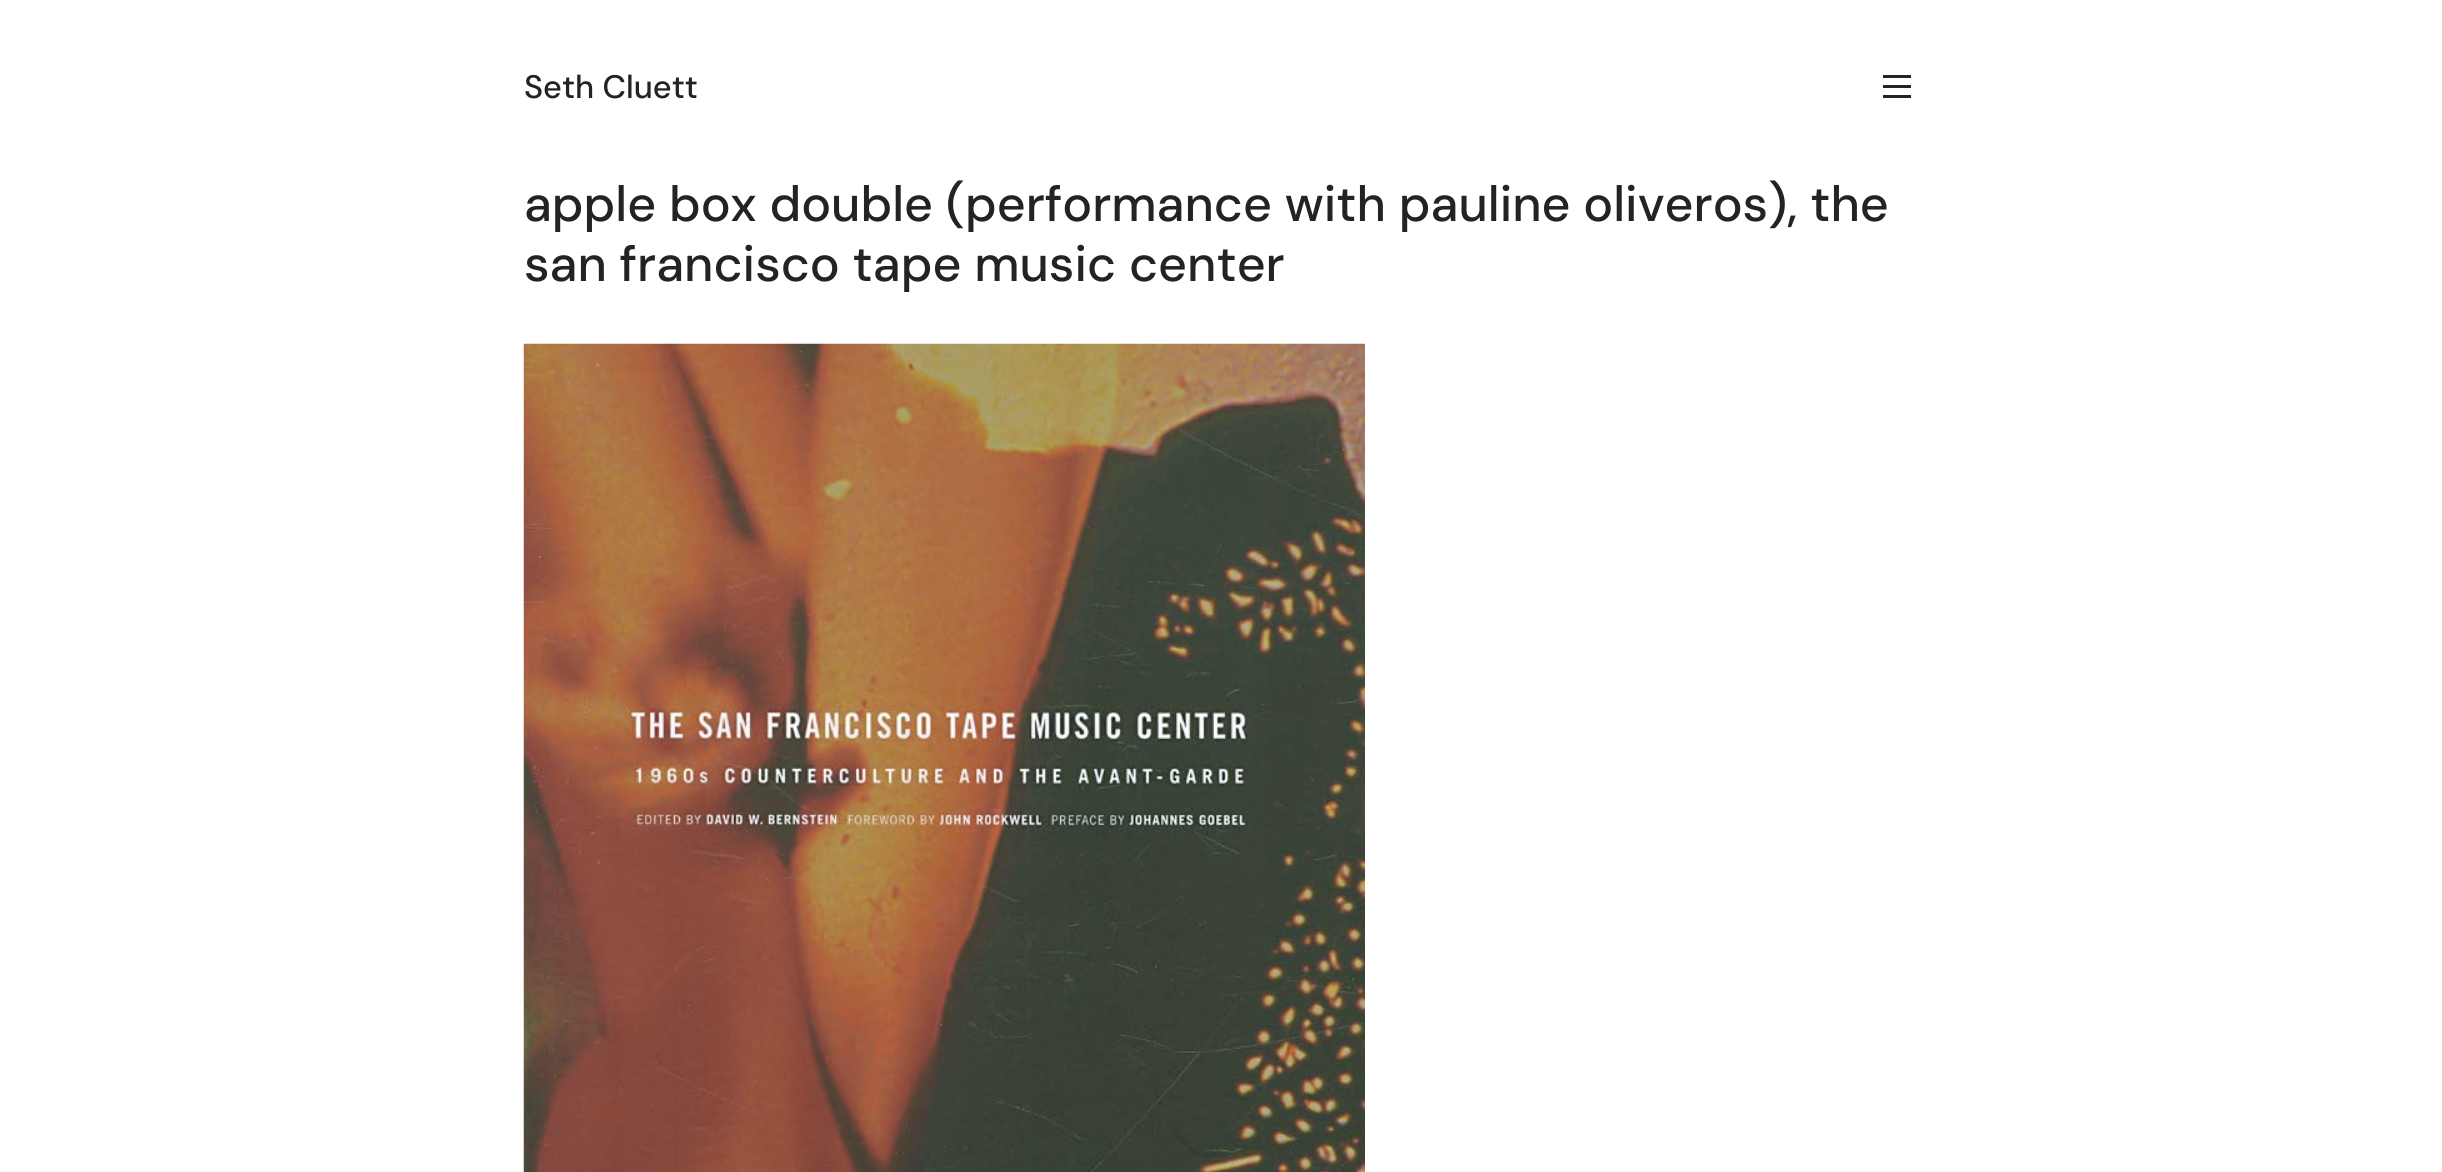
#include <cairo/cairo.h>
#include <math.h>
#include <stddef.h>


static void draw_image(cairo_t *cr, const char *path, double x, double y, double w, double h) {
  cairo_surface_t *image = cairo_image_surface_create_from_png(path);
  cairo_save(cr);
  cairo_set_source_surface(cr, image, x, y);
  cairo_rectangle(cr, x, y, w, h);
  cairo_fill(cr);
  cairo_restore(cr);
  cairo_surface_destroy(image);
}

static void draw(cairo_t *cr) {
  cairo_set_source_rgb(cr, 1, 1, 1);
  cairo_paint(cr);
  cairo_set_source_rgb(cr, 36 / 255.0, 35 / 255.0, 33 / 255.0);
  cairo_rectangle(cr, 1883, 75, 28, 3);
  cairo_fill(cr);
  cairo_rectangle(cr, 1883, 85, 28, 3);
  cairo_fill(cr);
  cairo_rectangle(cr, 1883, 95, 28, 3);
  cairo_fill(cr);
  draw_image(cr, "images/1.png", 523, 343, 842, 829);
  cairo_select_font_face(cr, "DM Sans Medium", CAIRO_FONT_SLANT_NORMAL, CAIRO_FONT_WEIGHT_NORMAL);
  cairo_set_font_size(cr, 32.5);
  cairo_move_to(cr, 524, 98);
  cairo_show_text(cr, "Seth Cluett");
  cairo_set_font_size(cr, 50);
  cairo_move_to(cr, 524, 221);
  cairo_show_text(cr, "apple box double (performance with pauline oliveros), the");
  cairo_move_to(cr, 524, 281);
  cairo_show_text(cr, "san francisco tape music center");
}

int main(void) {
  cairo_surface_t *surface = cairo_image_surface_create(CAIRO_FORMAT_RGB24, 2442, 1172);
  cairo_t *cr = cairo_create(surface);
  cairo_font_options_t *options = cairo_font_options_create();
  cairo_font_options_set_hint_metrics(options, CAIRO_HINT_METRICS_OFF);
  cairo_font_options_set_hint_style(options, CAIRO_HINT_STYLE_NONE);
  cairo_set_font_options(cr, options);
  cairo_set_miter_limit(cr, 4);
  draw(cr);
  cairo_surface_write_to_png(surface, "out.png");
  cairo_font_options_destroy(options);
  cairo_destroy(cr);
  cairo_surface_destroy(surface);
  return 0;
}
